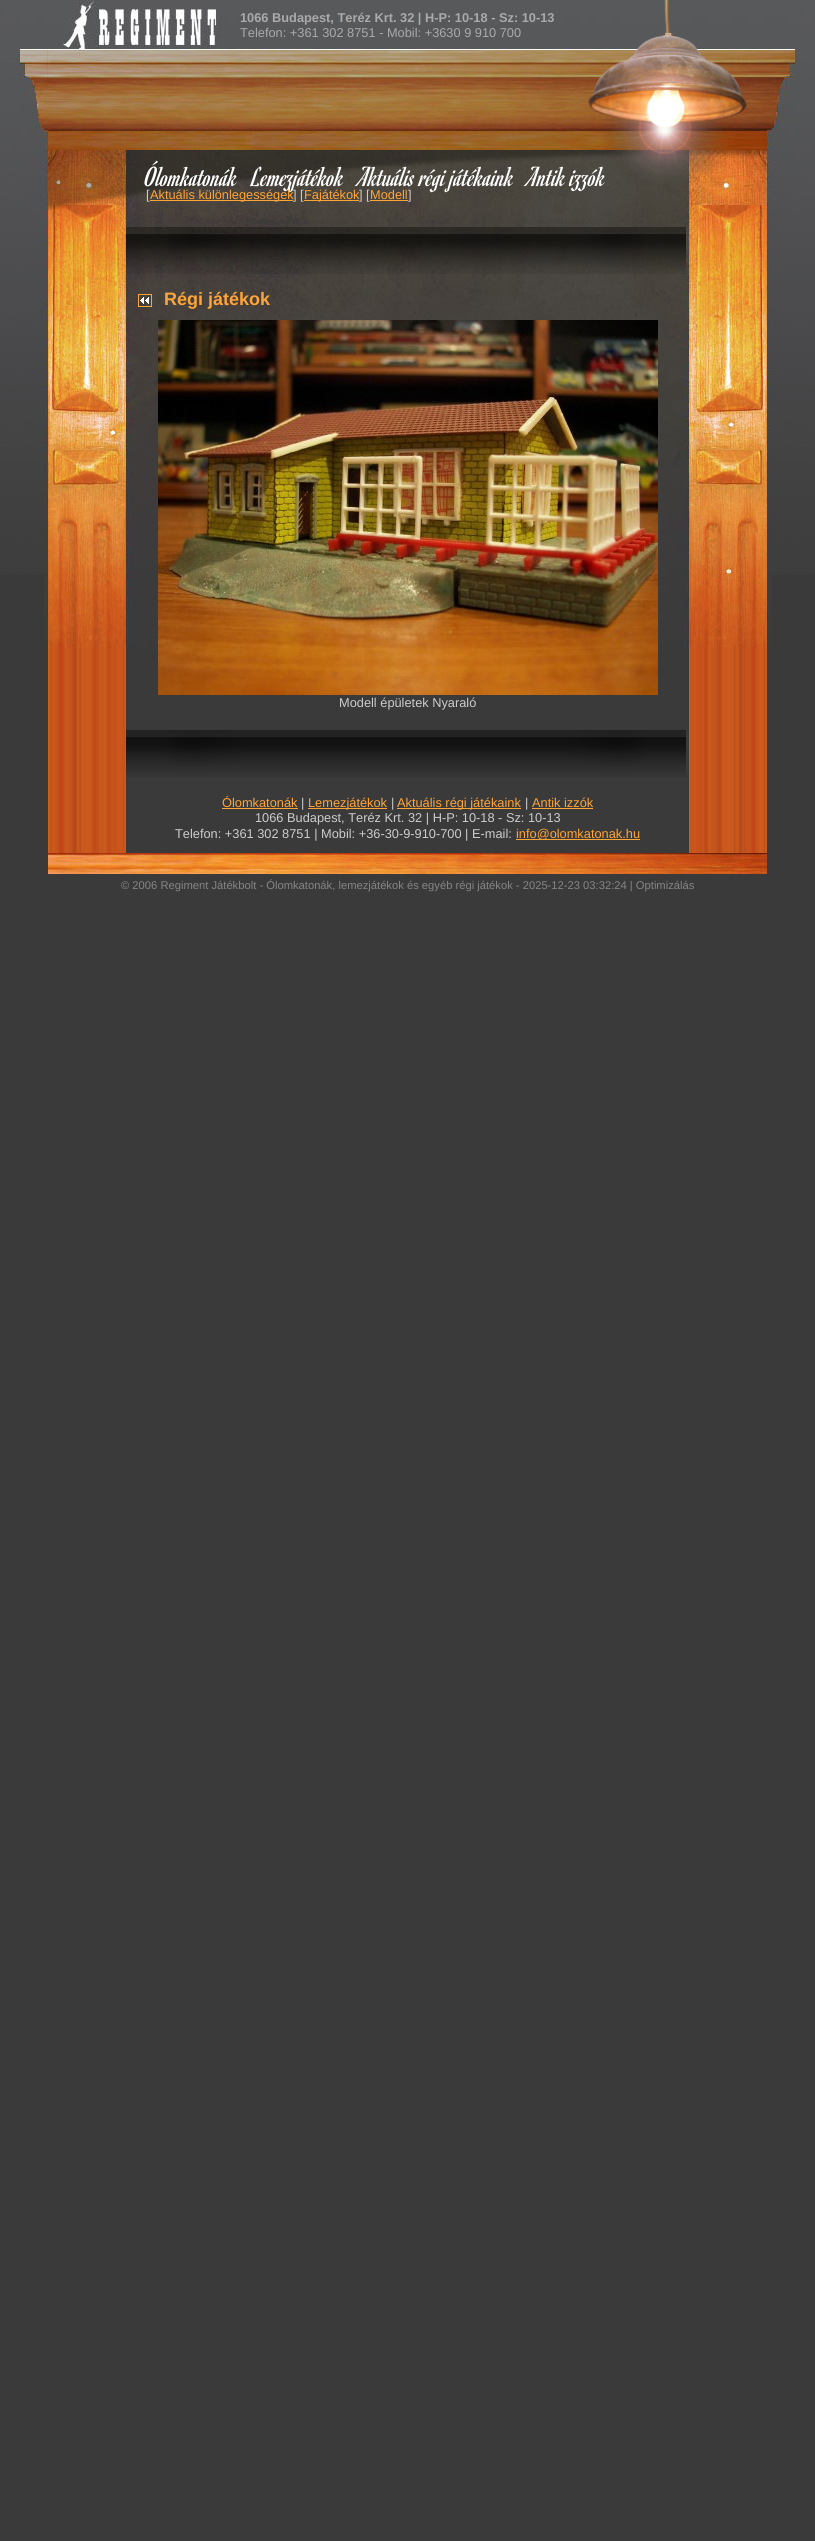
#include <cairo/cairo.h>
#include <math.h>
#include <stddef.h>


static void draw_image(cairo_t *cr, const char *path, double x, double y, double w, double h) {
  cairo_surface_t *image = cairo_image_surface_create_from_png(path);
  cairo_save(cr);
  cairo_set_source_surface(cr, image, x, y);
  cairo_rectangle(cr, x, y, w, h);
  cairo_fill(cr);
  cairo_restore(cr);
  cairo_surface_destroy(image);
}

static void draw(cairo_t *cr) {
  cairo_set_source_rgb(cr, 58 / 255.0, 58 / 255.0, 58 / 255.0);
  cairo_paint(cr);
  draw_image(cr, "images/1.png", 0, 0, 815, 575);
  draw_image(cr, "images/2.png", 20, 0, 775, 205);
  draw_image(cr, "images/7.png", 44, 205, 728, 443);
  draw_image(cr, "images/8.png", 126, 205, 563, 22);
  draw_image(cr, "images/5.png", 48, 130, 719, 81);
  draw_image(cr, "images/4.png", 604, 113, 118, 73);
  draw_image(cr, "images/3.png", 588, 0, 159, 128);
  draw_image(cr, "images/6.png", 48, 648, 719, 205);
  cairo_set_source_rgb(cr, 1, 164 / 255.0, 54 / 255.0);
  cairo_rectangle(cr, 150, 200, 143, 1);
  cairo_fill(cr);
  cairo_rectangle(cr, 304, 200, 55, 1);
  cairo_fill(cr);
  cairo_rectangle(cr, 370, 200, 38, 1);
  cairo_fill(cr);
  draw_image(cr, "images/9.png", 126, 227, 560, 47);
  draw_image(cr, "images/10.png", 138, 294, 14, 13);
  draw_image(cr, "images/11.png", 158, 320, 500, 375);
  draw_image(cr, "images/12.png", 126, 730, 560, 47);
  cairo_rectangle(cr, 222, 808, 76, 1);
  cairo_fill(cr);
  cairo_rectangle(cr, 308, 808, 79, 1);
  cairo_fill(cr);
  cairo_rectangle(cr, 397, 808, 124, 1);
  cairo_fill(cr);
  cairo_rectangle(cr, 532, 808, 61, 1);
  cairo_fill(cr);
  cairo_rectangle(cr, 516, 839, 124, 1);
  cairo_fill(cr);
  draw_image(cr, "images/13.png", 48, 853, 719, 21);
  cairo_select_font_face(cr, "Liberation Sans", CAIRO_FONT_SLANT_NORMAL, CAIRO_FONT_WEIGHT_BOLD);
  cairo_set_font_size(cr, 12.8);
  cairo_set_source_rgb(cr, 170 / 255.0, 170 / 255.0, 170 / 255.0);
  cairo_move_to(cr, 240, 22);
  cairo_show_text(cr, "1066 Budapest, Teréz Krt. 32 | H-P: 10-18 - Sz: 10-13");
  cairo_select_font_face(cr, "Liberation Sans", CAIRO_FONT_SLANT_NORMAL, CAIRO_FONT_WEIGHT_NORMAL);
  cairo_move_to(cr, 240, 37);
  cairo_show_text(cr, "Telefon: +361 302 8751 - Mobil: +3630 9 910 700");
  cairo_select_font_face(cr, "Romanesco", CAIRO_FONT_SLANT_NORMAL, CAIRO_FONT_WEIGHT_NORMAL);
  cairo_set_font_size(cr, 28.75);
  cairo_set_source_rgb(cr, 1, 1, 1);
  cairo_move_to(cr, 145, 186);
  cairo_show_text(cr, "Ólomkatonák");
  cairo_move_to(cr, 252, 186);
  cairo_show_text(cr, "Lemezjátékok");
  cairo_move_to(cr, 359, 186);
  cairo_show_text(cr, "Aktuális régi játékaink");
  cairo_move_to(cr, 528, 186);
  cairo_show_text(cr, "Antik izzók");
  cairo_select_font_face(cr, "Liberation Sans", CAIRO_FONT_SLANT_NORMAL, CAIRO_FONT_WEIGHT_NORMAL);
  cairo_set_font_size(cr, 12.8);
  cairo_set_source_rgb(cr, 204 / 255.0, 204 / 255.0, 204 / 255.0);
  cairo_move_to(cr, 146, 199);
  cairo_show_text(cr, "[");
  cairo_set_source_rgb(cr, 1, 164 / 255.0, 54 / 255.0);
  cairo_move_to(cr, 150, 199);
  cairo_show_text(cr, "Aktuális különlegességek");
  cairo_set_source_rgb(cr, 204 / 255.0, 204 / 255.0, 204 / 255.0);
  cairo_move_to(cr, 293, 199);
  cairo_show_text(cr, "] [");
  cairo_set_source_rgb(cr, 1, 164 / 255.0, 54 / 255.0);
  cairo_move_to(cr, 304, 199);
  cairo_show_text(cr, "Fajátékok");
  cairo_set_source_rgb(cr, 204 / 255.0, 204 / 255.0, 204 / 255.0);
  cairo_move_to(cr, 359, 199);
  cairo_show_text(cr, "] [");
  cairo_set_source_rgb(cr, 1, 164 / 255.0, 54 / 255.0);
  cairo_move_to(cr, 370, 199);
  cairo_show_text(cr, "Modell");
  cairo_set_source_rgb(cr, 204 / 255.0, 204 / 255.0, 204 / 255.0);
  cairo_move_to(cr, 408, 199);
  cairo_show_text(cr, "]");
  cairo_select_font_face(cr, "Liberation Sans", CAIRO_FONT_SLANT_NORMAL, CAIRO_FONT_WEIGHT_BOLD);
  cairo_set_font_size(cr, 18);
  cairo_set_source_rgb(cr, 1, 164 / 255.0, 54 / 255.0);
  cairo_move_to(cr, 164, 305);
  cairo_show_text(cr, "Régi játékok");
  cairo_select_font_face(cr, "Liberation Sans", CAIRO_FONT_SLANT_NORMAL, CAIRO_FONT_WEIGHT_NORMAL);
  cairo_set_font_size(cr, 12.8);
  cairo_set_source_rgb(cr, 204 / 255.0, 204 / 255.0, 204 / 255.0);
  cairo_move_to(cr, 339, 707);
  cairo_show_text(cr, "Modell épületek Nyaraló");
  cairo_set_source_rgb(cr, 1, 164 / 255.0, 54 / 255.0);
  cairo_move_to(cr, 222, 807);
  cairo_show_text(cr, "Ólomkatonák");
  cairo_set_source_rgb(cr, 204 / 255.0, 204 / 255.0, 204 / 255.0);
  cairo_move_to(cr, 301, 807);
  cairo_show_text(cr, "|");
  cairo_set_source_rgb(cr, 1, 164 / 255.0, 54 / 255.0);
  cairo_move_to(cr, 308, 807);
  cairo_show_text(cr, "Lemezjátékok");
  cairo_set_source_rgb(cr, 204 / 255.0, 204 / 255.0, 204 / 255.0);
  cairo_move_to(cr, 391, 807);
  cairo_show_text(cr, "|");
  cairo_set_source_rgb(cr, 1, 164 / 255.0, 54 / 255.0);
  cairo_move_to(cr, 397, 807);
  cairo_show_text(cr, "Aktuális régi játékaink");
  cairo_set_source_rgb(cr, 204 / 255.0, 204 / 255.0, 204 / 255.0);
  cairo_move_to(cr, 525, 807);
  cairo_show_text(cr, "|");
  cairo_set_source_rgb(cr, 1, 164 / 255.0, 54 / 255.0);
  cairo_move_to(cr, 532, 807);
  cairo_show_text(cr, "Antik izzók");
  cairo_set_source_rgb(cr, 204 / 255.0, 204 / 255.0, 204 / 255.0);
  cairo_move_to(cr, 255, 822);
  cairo_show_text(cr, "1066 Budapest, Teréz Krt. 32 | H-P: 10-18 - Sz: 10-13");
  cairo_move_to(cr, 175, 838);
  cairo_show_text(cr, "Telefon: +361 302 8751 | Mobil: +36-30-9-910-700 | E-mail:");
  cairo_set_source_rgb(cr, 1, 164 / 255.0, 54 / 255.0);
  cairo_move_to(cr, 516, 838);
  cairo_show_text(cr, "info@olomkatonak.hu");
  cairo_set_font_size(cr, 11.2);
  cairo_set_source_rgb(cr, 133 / 255.0, 133 / 255.0, 133 / 255.0);
  cairo_move_to(cr, 121, 889);
  cairo_show_text(cr, "© 2006 Regiment Játékbolt - Ólomkatonák, lemezjátékok és egyéb régi játékok - 2025-12-23 03:32:24 | Optimizálás");
}

int main(void) {
  cairo_surface_t *surface = cairo_image_surface_create(CAIRO_FORMAT_RGB24, 815, 2541);
  cairo_t *cr = cairo_create(surface);
  cairo_font_options_t *options = cairo_font_options_create();
  cairo_font_options_set_hint_metrics(options, CAIRO_HINT_METRICS_OFF);
  cairo_font_options_set_hint_style(options, CAIRO_HINT_STYLE_NONE);
  cairo_set_font_options(cr, options);
  cairo_set_miter_limit(cr, 4);
  draw(cr);
  cairo_surface_write_to_png(surface, "out.png");
  cairo_font_options_destroy(options);
  cairo_destroy(cr);
  cairo_surface_destroy(surface);
  return 0;
}
